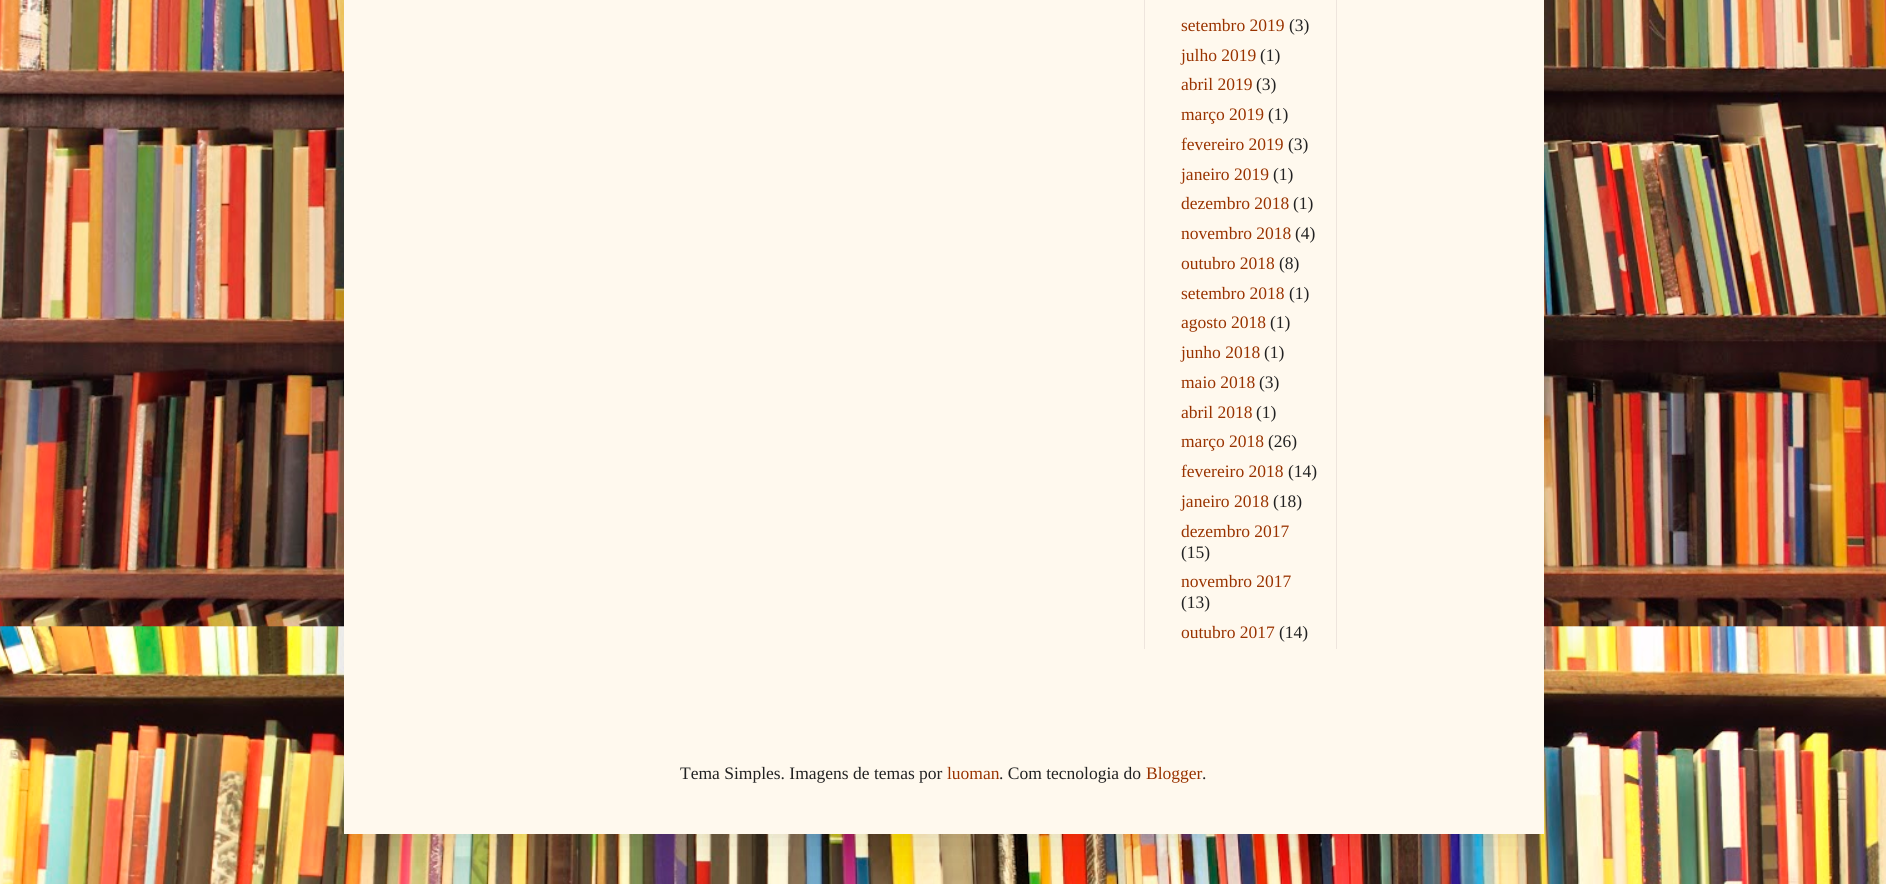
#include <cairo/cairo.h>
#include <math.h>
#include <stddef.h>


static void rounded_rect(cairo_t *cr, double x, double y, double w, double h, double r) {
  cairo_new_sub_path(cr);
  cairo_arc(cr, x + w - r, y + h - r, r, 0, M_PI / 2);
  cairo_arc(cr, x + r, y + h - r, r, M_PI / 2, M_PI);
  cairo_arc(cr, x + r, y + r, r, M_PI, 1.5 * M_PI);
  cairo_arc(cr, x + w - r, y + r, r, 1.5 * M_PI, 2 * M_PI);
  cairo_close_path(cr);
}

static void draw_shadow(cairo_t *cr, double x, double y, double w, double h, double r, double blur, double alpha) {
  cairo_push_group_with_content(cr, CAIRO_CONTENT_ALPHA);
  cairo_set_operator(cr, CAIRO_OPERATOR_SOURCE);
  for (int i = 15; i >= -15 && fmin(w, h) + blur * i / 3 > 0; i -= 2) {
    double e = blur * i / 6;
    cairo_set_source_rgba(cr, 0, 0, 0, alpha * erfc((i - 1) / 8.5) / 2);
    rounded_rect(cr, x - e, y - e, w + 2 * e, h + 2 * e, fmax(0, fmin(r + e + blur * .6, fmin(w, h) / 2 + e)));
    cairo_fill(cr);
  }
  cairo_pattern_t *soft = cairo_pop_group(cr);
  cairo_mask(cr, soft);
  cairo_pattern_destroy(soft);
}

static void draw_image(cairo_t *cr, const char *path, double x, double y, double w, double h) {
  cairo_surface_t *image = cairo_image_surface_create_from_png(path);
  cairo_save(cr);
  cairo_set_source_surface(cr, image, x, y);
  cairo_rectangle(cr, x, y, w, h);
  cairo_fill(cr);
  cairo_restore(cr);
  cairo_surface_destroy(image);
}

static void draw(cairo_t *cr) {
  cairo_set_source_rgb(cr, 1, 1, 1);
  cairo_paint(cr);
  draw_image(cr, "images/1.png", 0, 0, 1886, 884);
  cairo_set_source_rgb(cr, 0, 0, 0);
  draw_shadow(cr, 344, -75, 1200, 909, 0, 25, 0.15);
  cairo_set_source_rgb(cr, 1, 249 / 255.0, 238 / 255.0);
  cairo_rectangle(cr, 344, 0, 1200, 834);
  cairo_fill(cr);
  cairo_set_source_rgb(cr, 238 / 255.0, 229 / 255.0, 221 / 255.0);
  cairo_rectangle(cr, 1144, 0, 1, 649);
  cairo_fill(cr);
  cairo_rectangle(cr, 1336, 0, 1, 649);
  cairo_fill(cr);
  cairo_select_font_face(cr, "Liberation Serif", CAIRO_FONT_SLANT_NORMAL, CAIRO_FONT_WEIGHT_NORMAL);
  cairo_set_font_size(cr, 17.5);
  cairo_set_source_rgb(cr, 153 / 255.0, 51 / 255.0, 0);
  cairo_move_to(cr, 1181, 31);
  cairo_show_text(cr, "setembro 2019");
  cairo_set_source_rgb(cr, 34 / 255.0, 34 / 255.0, 34 / 255.0);
  cairo_move_to(cr, 1289, 31);
  cairo_show_text(cr, "(3)");
  cairo_set_source_rgb(cr, 153 / 255.0, 51 / 255.0, 0);
  cairo_move_to(cr, 1181, 61);
  cairo_show_text(cr, "julho 2019");
  cairo_set_source_rgb(cr, 34 / 255.0, 34 / 255.0, 34 / 255.0);
  cairo_move_to(cr, 1260, 61);
  cairo_show_text(cr, "(1)");
  cairo_set_source_rgb(cr, 153 / 255.0, 51 / 255.0, 0);
  cairo_move_to(cr, 1181, 90);
  cairo_show_text(cr, "abril 2019");
  cairo_set_source_rgb(cr, 34 / 255.0, 34 / 255.0, 34 / 255.0);
  cairo_move_to(cr, 1256, 90);
  cairo_show_text(cr, "(3)");
  cairo_set_source_rgb(cr, 153 / 255.0, 51 / 255.0, 0);
  cairo_move_to(cr, 1181, 120);
  cairo_show_text(cr, "março 2019");
  cairo_set_source_rgb(cr, 34 / 255.0, 34 / 255.0, 34 / 255.0);
  cairo_move_to(cr, 1268, 120);
  cairo_show_text(cr, "(1)");
  cairo_set_source_rgb(cr, 153 / 255.0, 51 / 255.0, 0);
  cairo_move_to(cr, 1181, 150);
  cairo_show_text(cr, "fevereiro 2019");
  cairo_set_source_rgb(cr, 34 / 255.0, 34 / 255.0, 34 / 255.0);
  cairo_move_to(cr, 1288, 150);
  cairo_show_text(cr, "(3)");
  cairo_set_source_rgb(cr, 153 / 255.0, 51 / 255.0, 0);
  cairo_move_to(cr, 1181, 180);
  cairo_show_text(cr, "janeiro 2019");
  cairo_set_source_rgb(cr, 34 / 255.0, 34 / 255.0, 34 / 255.0);
  cairo_move_to(cr, 1273, 180);
  cairo_show_text(cr, "(1)");
  cairo_set_source_rgb(cr, 153 / 255.0, 51 / 255.0, 0);
  cairo_move_to(cr, 1181, 209);
  cairo_show_text(cr, "dezembro 2018");
  cairo_set_source_rgb(cr, 34 / 255.0, 34 / 255.0, 34 / 255.0);
  cairo_move_to(cr, 1293, 209);
  cairo_show_text(cr, "(1)");
  cairo_set_source_rgb(cr, 153 / 255.0, 51 / 255.0, 0);
  cairo_move_to(cr, 1181, 239);
  cairo_show_text(cr, "novembro 2018");
  cairo_set_source_rgb(cr, 34 / 255.0, 34 / 255.0, 34 / 255.0);
  cairo_move_to(cr, 1295, 239);
  cairo_show_text(cr, "(4)");
  cairo_set_source_rgb(cr, 153 / 255.0, 51 / 255.0, 0);
  cairo_move_to(cr, 1181, 269);
  cairo_show_text(cr, "outubro 2018");
  cairo_set_source_rgb(cr, 34 / 255.0, 34 / 255.0, 34 / 255.0);
  cairo_move_to(cr, 1279, 269);
  cairo_show_text(cr, "(8)");
  cairo_set_source_rgb(cr, 153 / 255.0, 51 / 255.0, 0);
  cairo_move_to(cr, 1181, 299);
  cairo_show_text(cr, "setembro 2018");
  cairo_set_source_rgb(cr, 34 / 255.0, 34 / 255.0, 34 / 255.0);
  cairo_move_to(cr, 1289, 299);
  cairo_show_text(cr, "(1)");
  cairo_set_source_rgb(cr, 153 / 255.0, 51 / 255.0, 0);
  cairo_move_to(cr, 1181, 328);
  cairo_show_text(cr, "agosto 2018");
  cairo_set_source_rgb(cr, 34 / 255.0, 34 / 255.0, 34 / 255.0);
  cairo_move_to(cr, 1270, 328);
  cairo_show_text(cr, "(1)");
  cairo_set_source_rgb(cr, 153 / 255.0, 51 / 255.0, 0);
  cairo_move_to(cr, 1181, 358);
  cairo_show_text(cr, "junho 2018");
  cairo_set_source_rgb(cr, 34 / 255.0, 34 / 255.0, 34 / 255.0);
  cairo_move_to(cr, 1264, 358);
  cairo_show_text(cr, "(1)");
  cairo_set_source_rgb(cr, 153 / 255.0, 51 / 255.0, 0);
  cairo_move_to(cr, 1181, 388);
  cairo_show_text(cr, "maio 2018");
  cairo_set_source_rgb(cr, 34 / 255.0, 34 / 255.0, 34 / 255.0);
  cairo_move_to(cr, 1259, 388);
  cairo_show_text(cr, "(3)");
  cairo_set_source_rgb(cr, 153 / 255.0, 51 / 255.0, 0);
  cairo_move_to(cr, 1181, 418);
  cairo_show_text(cr, "abril 2018");
  cairo_set_source_rgb(cr, 34 / 255.0, 34 / 255.0, 34 / 255.0);
  cairo_move_to(cr, 1256, 418);
  cairo_show_text(cr, "(1)");
  cairo_set_source_rgb(cr, 153 / 255.0, 51 / 255.0, 0);
  cairo_move_to(cr, 1181, 447);
  cairo_show_text(cr, "março 2018");
  cairo_set_source_rgb(cr, 34 / 255.0, 34 / 255.0, 34 / 255.0);
  cairo_move_to(cr, 1268, 447);
  cairo_show_text(cr, "(26)");
  cairo_set_source_rgb(cr, 153 / 255.0, 51 / 255.0, 0);
  cairo_move_to(cr, 1181, 477);
  cairo_show_text(cr, "fevereiro 2018");
  cairo_set_source_rgb(cr, 34 / 255.0, 34 / 255.0, 34 / 255.0);
  cairo_move_to(cr, 1288, 477);
  cairo_show_text(cr, "(14)");
  cairo_set_source_rgb(cr, 153 / 255.0, 51 / 255.0, 0);
  cairo_move_to(cr, 1181, 507);
  cairo_show_text(cr, "janeiro 2018");
  cairo_set_source_rgb(cr, 34 / 255.0, 34 / 255.0, 34 / 255.0);
  cairo_move_to(cr, 1273, 507);
  cairo_show_text(cr, "(18)");
  cairo_set_source_rgb(cr, 153 / 255.0, 51 / 255.0, 0);
  cairo_move_to(cr, 1181, 537);
  cairo_show_text(cr, "dezembro 2017");
  cairo_set_source_rgb(cr, 34 / 255.0, 34 / 255.0, 34 / 255.0);
  cairo_move_to(cr, 1181, 558);
  cairo_show_text(cr, "(15)");
  cairo_set_source_rgb(cr, 153 / 255.0, 51 / 255.0, 0);
  cairo_move_to(cr, 1181, 587);
  cairo_show_text(cr, "novembro 2017");
  cairo_set_source_rgb(cr, 34 / 255.0, 34 / 255.0, 34 / 255.0);
  cairo_move_to(cr, 1181, 608);
  cairo_show_text(cr, "(13)");
  cairo_set_source_rgb(cr, 153 / 255.0, 51 / 255.0, 0);
  cairo_move_to(cr, 1181, 638);
  cairo_show_text(cr, "outubro 2017");
  cairo_set_source_rgb(cr, 34 / 255.0, 34 / 255.0, 34 / 255.0);
  cairo_move_to(cr, 1279, 638);
  cairo_show_text(cr, "(14)");
  cairo_move_to(cr, 680, 779);
  cairo_show_text(cr, "Tema Simples. Imagens de temas por");
  cairo_set_source_rgb(cr, 153 / 255.0, 51 / 255.0, 0);
  cairo_move_to(cr, 947, 779);
  cairo_show_text(cr, "luoman");
  cairo_set_source_rgb(cr, 34 / 255.0, 34 / 255.0, 34 / 255.0);
  cairo_move_to(cr, 999, 779);
  cairo_show_text(cr, ". Com tecnologia do");
  cairo_set_source_rgb(cr, 153 / 255.0, 51 / 255.0, 0);
  cairo_move_to(cr, 1146, 779);
  cairo_show_text(cr, "Blogger");
  cairo_set_source_rgb(cr, 34 / 255.0, 34 / 255.0, 34 / 255.0);
  cairo_move_to(cr, 1202, 779);
  cairo_show_text(cr, ".");
}

int main(void) {
  cairo_surface_t *surface = cairo_image_surface_create(CAIRO_FORMAT_RGB24, 1886, 884);
  cairo_t *cr = cairo_create(surface);
  cairo_font_options_t *options = cairo_font_options_create();
  cairo_font_options_set_hint_metrics(options, CAIRO_HINT_METRICS_OFF);
  cairo_font_options_set_hint_style(options, CAIRO_HINT_STYLE_NONE);
  cairo_set_font_options(cr, options);
  cairo_set_miter_limit(cr, 4);
  draw(cr);
  cairo_surface_write_to_png(surface, "out.png");
  cairo_font_options_destroy(options);
  cairo_destroy(cr);
  cairo_surface_destroy(surface);
  return 0;
}
